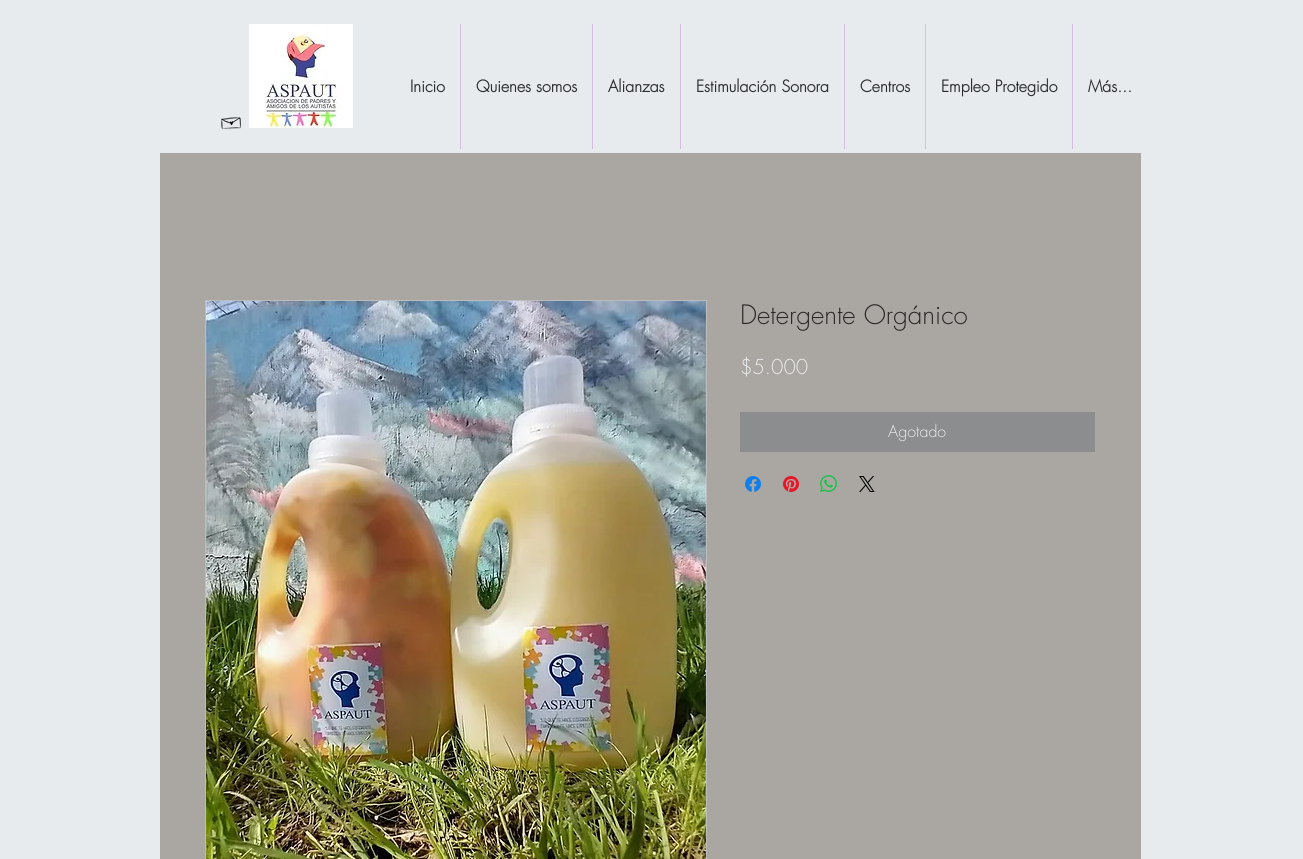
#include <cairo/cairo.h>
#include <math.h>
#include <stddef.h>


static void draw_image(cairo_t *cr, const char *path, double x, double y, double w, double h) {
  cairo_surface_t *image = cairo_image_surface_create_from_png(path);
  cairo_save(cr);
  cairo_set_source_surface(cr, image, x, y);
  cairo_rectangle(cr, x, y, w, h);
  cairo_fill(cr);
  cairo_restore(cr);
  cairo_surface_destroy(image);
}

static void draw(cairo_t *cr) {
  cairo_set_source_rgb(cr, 232 / 255.0, 235 / 255.0, 237 / 255.0);
  cairo_paint(cr);
  draw_image(cr, "images/1.png", 249, 24, 104, 104);
  cairo_set_source_rgb(cr, 216 / 255.0, 189 / 255.0, 226 / 255.0);
  cairo_rectangle(cr, 460, 24, 1, 125);
  cairo_fill(cr);
  cairo_rectangle(cr, 592, 24, 1, 125);
  cairo_fill(cr);
  cairo_rectangle(cr, 680, 24, 1, 125);
  cairo_fill(cr);
  cairo_rectangle(cr, 844, 24, 1, 125);
  cairo_fill(cr);
  cairo_rectangle(cr, 925, 24, 1, 125);
  cairo_fill(cr);
  cairo_rectangle(cr, 1072, 24, 1, 125);
  cairo_fill(cr);
  draw_image(cr, "images/2.png", 221, 117, 20, 13);
  cairo_set_source_rgb(cr, 170 / 255.0, 167 / 255.0, 163 / 255.0);
  cairo_rectangle(cr, 160, 153, 981, 706);
  cairo_fill(cr);
  cairo_rectangle(cr, 205.5, 300.5, 501, 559);
  cairo_set_source_rgb(cr, 186 / 255.0, 188 / 255.0, 190 / 255.0);
  cairo_set_line_width(cr, 1);
  cairo_stroke(cr);
  draw_image(cr, "images/3.png", 206, 301, 500, 558);
  cairo_set_source_rgb(cr, 139 / 255.0, 141 / 255.0, 142 / 255.0);
  cairo_rectangle(cr, 740, 412, 355, 40);
  cairo_fill(cr);
  draw_image(cr, "images/4.png", 745, 476, 16, 16);
  draw_image(cr, "images/5.png", 783, 476, 16, 16);
  draw_image(cr, "images/6.png", 820, 475, 17, 17);
  draw_image(cr, "images/7.png", 859, 476, 16, 16);
  cairo_select_font_face(cr, "futura", CAIRO_FONT_SLANT_NORMAL, CAIRO_FONT_WEIGHT_BOLD);
  cairo_set_font_size(cr, 16);
  cairo_set_source_rgb(cr, 46 / 255.0, 47 / 255.0, 47 / 255.0);
  cairo_move_to(cr, 410, 92);
  cairo_show_text(cr, "Inicio");
  cairo_move_to(cr, 476, 92);
  cairo_show_text(cr, "Quienes somos");
  cairo_move_to(cr, 608, 92);
  cairo_show_text(cr, "Alianzas");
  cairo_move_to(cr, 696, 92);
  cairo_show_text(cr, "Estimulación Sonora");
  cairo_move_to(cr, 860, 92);
  cairo_show_text(cr, "Centros");
  cairo_move_to(cr, 941, 92);
  cairo_show_text(cr, "Empleo Protegido");
  cairo_move_to(cr, 1088, 92);
  cairo_show_text(cr, "Más...");
  cairo_select_font_face(cr, "futura Light", CAIRO_FONT_SLANT_NORMAL, CAIRO_FONT_WEIGHT_NORMAL);
  cairo_set_font_size(cr, 26);
  cairo_set_source_rgb(cr, 42 / 255.0, 42 / 255.0, 41 / 255.0);
  cairo_move_to(cr, 740, 324);
  cairo_show_text(cr, "Detergente Orgánico");
  cairo_set_font_size(cr, 20);
  cairo_set_source_rgb(cr, 232 / 255.0, 235 / 255.0, 237 / 255.0);
  cairo_move_to(cr, 740, 374);
  cairo_show_text(cr, "$5.000");
  cairo_set_font_size(cr, 16);
  cairo_move_to(cr, 888, 437);
  cairo_show_text(cr, "Agotado");
}

int main(void) {
  cairo_surface_t *surface = cairo_image_surface_create(CAIRO_FORMAT_RGB24, 1303, 859);
  cairo_t *cr = cairo_create(surface);
  cairo_font_options_t *options = cairo_font_options_create();
  cairo_font_options_set_hint_metrics(options, CAIRO_HINT_METRICS_OFF);
  cairo_font_options_set_hint_style(options, CAIRO_HINT_STYLE_NONE);
  cairo_set_font_options(cr, options);
  cairo_set_miter_limit(cr, 4);
  draw(cr);
  cairo_surface_write_to_png(surface, "out.png");
  cairo_font_options_destroy(options);
  cairo_destroy(cr);
  cairo_surface_destroy(surface);
  return 0;
}
